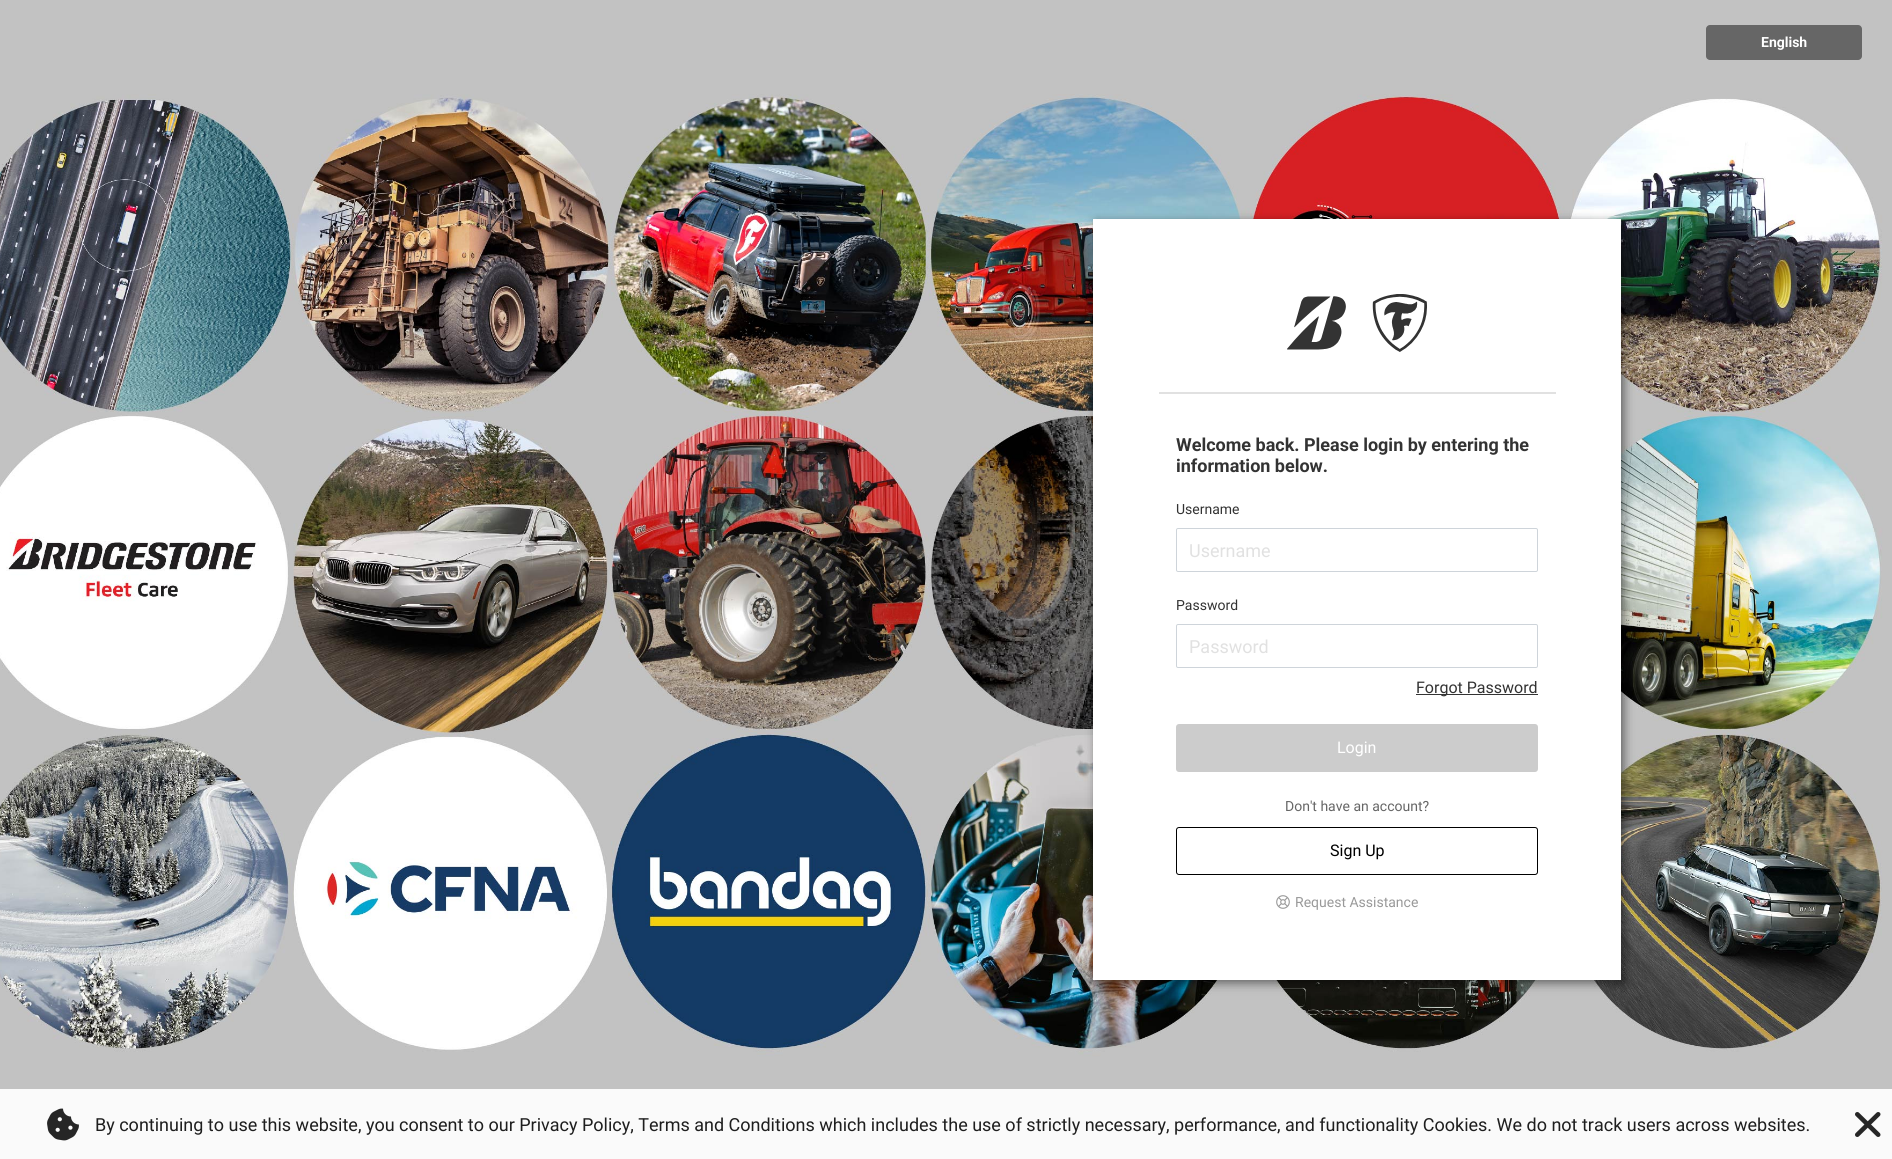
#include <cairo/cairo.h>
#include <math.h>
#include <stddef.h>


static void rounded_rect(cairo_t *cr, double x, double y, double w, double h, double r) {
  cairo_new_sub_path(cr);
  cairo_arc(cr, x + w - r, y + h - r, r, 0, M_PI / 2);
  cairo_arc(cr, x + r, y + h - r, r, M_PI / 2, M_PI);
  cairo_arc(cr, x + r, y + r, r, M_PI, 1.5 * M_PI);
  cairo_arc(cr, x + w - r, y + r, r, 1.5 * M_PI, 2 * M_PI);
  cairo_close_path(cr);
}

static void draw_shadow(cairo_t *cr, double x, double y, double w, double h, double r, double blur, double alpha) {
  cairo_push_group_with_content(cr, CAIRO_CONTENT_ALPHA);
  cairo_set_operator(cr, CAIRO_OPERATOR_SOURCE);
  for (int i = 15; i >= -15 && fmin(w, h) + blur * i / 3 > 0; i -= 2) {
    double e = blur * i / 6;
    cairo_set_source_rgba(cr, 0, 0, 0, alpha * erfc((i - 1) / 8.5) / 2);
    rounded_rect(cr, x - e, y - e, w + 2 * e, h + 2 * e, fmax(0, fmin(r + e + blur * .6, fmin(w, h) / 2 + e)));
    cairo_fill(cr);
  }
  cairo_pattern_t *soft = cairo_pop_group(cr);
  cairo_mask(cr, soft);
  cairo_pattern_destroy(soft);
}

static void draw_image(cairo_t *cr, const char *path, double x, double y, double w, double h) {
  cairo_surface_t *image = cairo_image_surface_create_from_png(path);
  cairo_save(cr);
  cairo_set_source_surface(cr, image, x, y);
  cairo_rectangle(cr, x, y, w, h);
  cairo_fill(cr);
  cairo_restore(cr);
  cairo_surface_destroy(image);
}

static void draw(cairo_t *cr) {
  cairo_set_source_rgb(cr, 1, 1, 1);
  cairo_paint(cr);
  draw_image(cr, "images/1.png", 0, 0, 1892, 1089);
  cairo_set_source_rgb(cr, 102 / 255.0, 102 / 255.0, 102 / 255.0);
  rounded_rect(cr, 1706, 25, 156, 35, 4);
  cairo_fill(cr);
  cairo_set_source_rgb(cr, 0, 0, 0);
  draw_shadow(cr, 1096, 222, 528, 761, 0, 5, 0.5);
  cairo_set_source_rgb(cr, 1, 1, 1);
  cairo_rectangle(cr, 1093, 219, 528, 761);
  cairo_fill(cr);
  draw_image(cr, "images/2.png", 1287, 294, 140, 58);
  cairo_set_source_rgb(cr, 225 / 255.0, 225 / 255.0, 225 / 255.0);
  cairo_rectangle(cr, 1159, 392, 397, 2);
  cairo_fill(cr);
  rounded_rect(cr, 1176.5, 528.5, 361, 43, 1.5);
  cairo_set_source_rgb(cr, 206 / 255.0, 212 / 255.0, 218 / 255.0);
  cairo_set_line_width(cr, 1);
  cairo_stroke(cr);
  rounded_rect(cr, 1176.5, 624.5, 361, 43, 1.5);
  cairo_stroke(cr);
  cairo_set_source_rgb(cr, 51 / 255.0, 51 / 255.0, 51 / 255.0);
  cairo_rectangle(cr, 1416, 694, 122, 1);
  cairo_fill(cr);
  cairo_set_source_rgb(cr, 204 / 255.0, 204 / 255.0, 204 / 255.0);
  rounded_rect(cr, 1176, 724, 362, 48, 3);
  cairo_fill(cr);
  rounded_rect(cr, 1176.5, 827.5, 361, 47, 2.5);
  cairo_set_source_rgb(cr, 0, 0, 0);
  cairo_stroke(cr);
  draw_image(cr, "images/3.png", 1276, 895, 14, 14);
  cairo_set_source_rgb(cr, 250 / 255.0, 250 / 255.0, 250 / 255.0);
  cairo_rectangle(cr, 0, 1089, 1892, 70);
  cairo_fill(cr);
  draw_image(cr, "images/4.png", 47, 1108, 32, 33);
  draw_image(cr, "images/5.png", 1855, 1112, 26, 25);
  cairo_select_font_face(cr, "Roboto", CAIRO_FONT_SLANT_NORMAL, CAIRO_FONT_WEIGHT_BOLD);
  cairo_set_font_size(cr, 14);
  cairo_set_source_rgb(cr, 1, 1, 1);
  cairo_move_to(cr, 1761, 47);
  cairo_show_text(cr, "English");
  cairo_set_font_size(cr, 18);
  cairo_set_source_rgb(cr, 51 / 255.0, 51 / 255.0, 51 / 255.0);
  cairo_move_to(cr, 1176, 451);
  cairo_show_text(cr, "Welcome back. Please login by entering the");
  cairo_move_to(cr, 1176, 472);
  cairo_show_text(cr, "information below.");
  cairo_select_font_face(cr, "Roboto", CAIRO_FONT_SLANT_NORMAL, CAIRO_FONT_WEIGHT_NORMAL);
  cairo_set_font_size(cr, 14);
  cairo_move_to(cr, 1176, 514);
  cairo_show_text(cr, "Username");
  cairo_set_font_size(cr, 18);
  cairo_set_source_rgb(cr, 225 / 255.0, 225 / 255.0, 225 / 255.0);
  cairo_move_to(cr, 1189, 557);
  cairo_show_text(cr, "Username");
  cairo_set_font_size(cr, 14);
  cairo_set_source_rgb(cr, 51 / 255.0, 51 / 255.0, 51 / 255.0);
  cairo_move_to(cr, 1176, 610);
  cairo_show_text(cr, "Password");
  cairo_set_font_size(cr, 18);
  cairo_set_source_rgb(cr, 225 / 255.0, 225 / 255.0, 225 / 255.0);
  cairo_move_to(cr, 1189, 653);
  cairo_show_text(cr, "Password");
  cairo_set_font_size(cr, 16);
  cairo_set_source_rgb(cr, 51 / 255.0, 51 / 255.0, 51 / 255.0);
  cairo_move_to(cr, 1416, 693);
  cairo_show_text(cr, "Forgot Password");
  cairo_set_source_rgb(cr, 1, 1, 1);
  cairo_move_to(cr, 1337, 753);
  cairo_show_text(cr, "Login");
  cairo_set_font_size(cr, 14);
  cairo_set_source_rgb(cr, 102 / 255.0, 102 / 255.0, 102 / 255.0);
  cairo_move_to(cr, 1285, 811);
  cairo_show_text(cr, "Don't have an account?");
  cairo_set_font_size(cr, 16);
  cairo_set_source_rgb(cr, 0, 0, 0);
  cairo_move_to(cr, 1330, 856);
  cairo_show_text(cr, "Sign Up");
  cairo_set_font_size(cr, 14);
  cairo_set_source_rgb(cr, 153 / 255.0, 153 / 255.0, 153 / 255.0);
  cairo_move_to(cr, 1295, 907);
  cairo_show_text(cr, "Request Assistance");
  cairo_set_font_size(cr, 18);
  cairo_set_source_rgb(cr, 30 / 255.0, 30 / 255.0, 30 / 255.0);
  cairo_move_to(cr, 95, 1131);
  cairo_show_text(cr, "By continuing to use this website, you consent to our Privacy Policy, Terms and Conditions which includes the use of strictly necessary, performance, and functionality Cookies. We do not track users across websites.");
}

int main(void) {
  cairo_surface_t *surface = cairo_image_surface_create(CAIRO_FORMAT_RGB24, 1892, 1159);
  cairo_t *cr = cairo_create(surface);
  cairo_font_options_t *options = cairo_font_options_create();
  cairo_font_options_set_hint_metrics(options, CAIRO_HINT_METRICS_OFF);
  cairo_font_options_set_hint_style(options, CAIRO_HINT_STYLE_NONE);
  cairo_set_font_options(cr, options);
  cairo_set_miter_limit(cr, 4);
  draw(cr);
  cairo_surface_write_to_png(surface, "out.png");
  cairo_font_options_destroy(options);
  cairo_destroy(cr);
  cairo_surface_destroy(surface);
  return 0;
}
